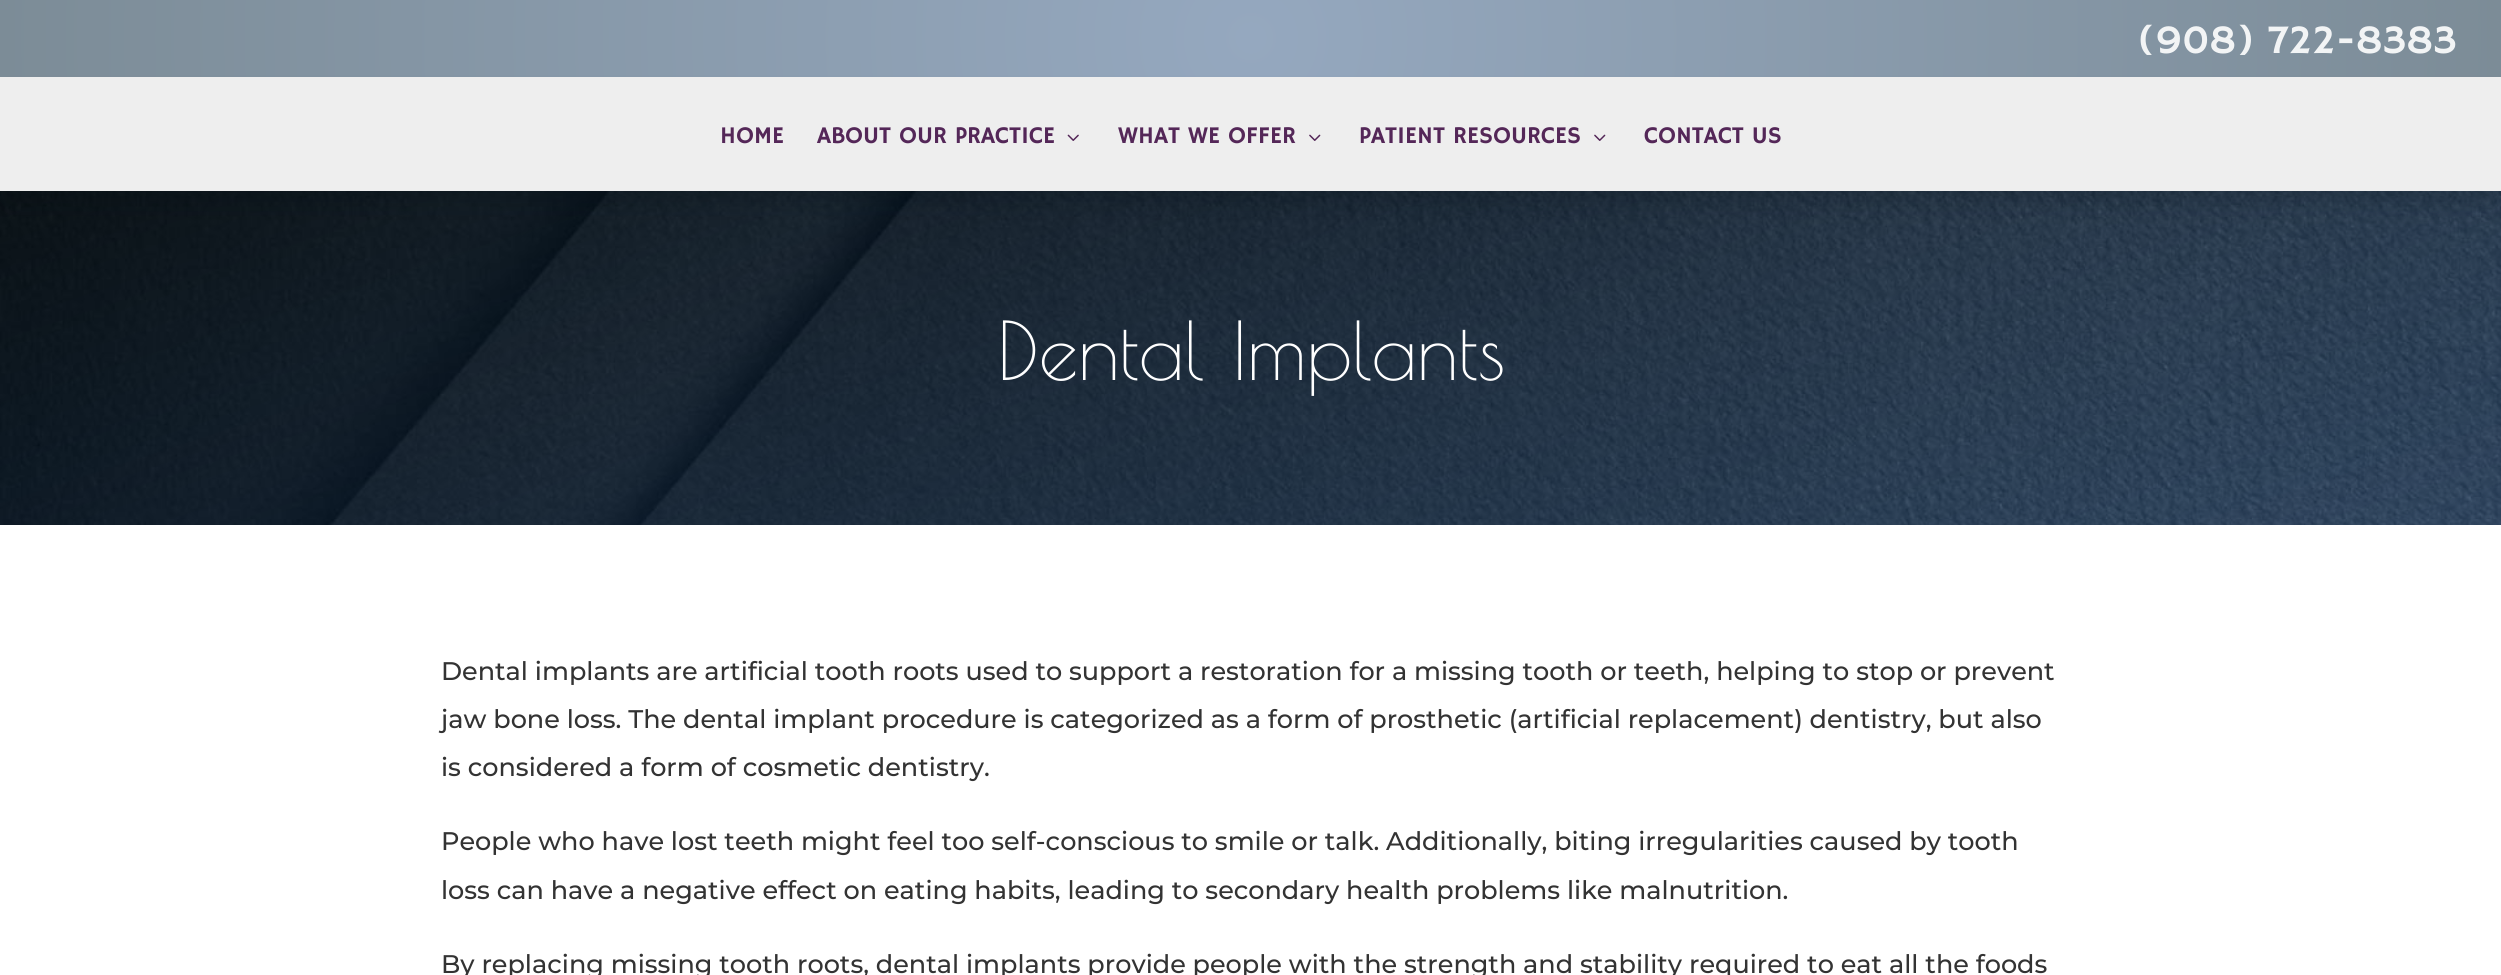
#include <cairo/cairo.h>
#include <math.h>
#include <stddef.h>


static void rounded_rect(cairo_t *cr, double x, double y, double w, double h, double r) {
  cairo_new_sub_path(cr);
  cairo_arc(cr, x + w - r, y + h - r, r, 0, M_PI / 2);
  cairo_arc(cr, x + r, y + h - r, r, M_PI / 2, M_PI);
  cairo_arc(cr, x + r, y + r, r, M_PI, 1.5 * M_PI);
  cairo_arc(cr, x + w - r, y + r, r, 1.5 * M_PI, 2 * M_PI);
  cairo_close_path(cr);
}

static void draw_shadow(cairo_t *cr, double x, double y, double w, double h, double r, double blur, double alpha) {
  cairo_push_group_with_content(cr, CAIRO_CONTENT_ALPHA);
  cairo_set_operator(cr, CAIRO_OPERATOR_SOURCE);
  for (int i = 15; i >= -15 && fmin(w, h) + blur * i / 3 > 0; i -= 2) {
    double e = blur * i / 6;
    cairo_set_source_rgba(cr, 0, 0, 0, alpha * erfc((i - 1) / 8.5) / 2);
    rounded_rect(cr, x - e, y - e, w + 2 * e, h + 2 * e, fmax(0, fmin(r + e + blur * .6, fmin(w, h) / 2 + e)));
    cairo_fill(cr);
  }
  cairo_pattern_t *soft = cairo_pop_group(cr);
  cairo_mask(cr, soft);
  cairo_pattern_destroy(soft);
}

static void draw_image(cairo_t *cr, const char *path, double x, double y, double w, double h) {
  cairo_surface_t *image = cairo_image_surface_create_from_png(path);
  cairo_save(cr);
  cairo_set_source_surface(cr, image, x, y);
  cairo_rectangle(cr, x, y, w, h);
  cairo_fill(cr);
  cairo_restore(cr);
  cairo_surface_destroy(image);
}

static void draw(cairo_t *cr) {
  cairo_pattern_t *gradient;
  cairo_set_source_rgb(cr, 1, 1, 1);
  cairo_paint(cr);
  gradient = cairo_pattern_create_radial(1251, 38, 0, 1251, 38, 1252);
  cairo_pattern_add_color_stop_rgba(gradient, 0, 149 / 255.0, 168 / 255.0, 191 / 255.0, 1);
  cairo_pattern_add_color_stop_rgba(gradient, 1, 124 / 255.0, 140 / 255.0, 151 / 255.0, 1);
  cairo_set_source(cr, gradient);
  cairo_pattern_destroy(gradient);
  cairo_rectangle(cr, 0, 0, 2501, 77);
  cairo_fill(cr);
  draw_image(cr, "images/3.png", 0, 191, 2501, 334);
  cairo_set_source_rgb(cr, 0, 11 / 255.0, 18 / 255.0);
  draw_shadow(cr, 9, 104, 2484, 96, 0, 13.5, 0.22);
  cairo_set_source_rgb(cr, 238 / 255.0, 238 / 255.0, 238 / 255.0);
  cairo_rectangle(cr, 0, 77, 2501, 114);
  cairo_fill(cr);
  draw_image(cr, "images/1.png", 1067, 134, 12, 7);
  draw_image(cr, "images/2.png", 1309, 134, 12, 7);
  draw_image(cr, "images/2.png", 1594, 134, 12, 7);
  cairo_select_font_face(cr, "Hammersmith One", CAIRO_FONT_SLANT_NORMAL, CAIRO_FONT_WEIGHT_NORMAL);
  cairo_set_font_size(cr, 40.5);
  cairo_set_source_rgb(cr, 242 / 255.0, 244 / 255.0, 245 / 255.0);
  cairo_move_to(cr, 2137, 53);
  cairo_show_text(cr, "(908) 722-8383");
  cairo_set_font_size(cr, 24);
  cairo_set_source_rgb(cr, 84 / 255.0, 39 / 255.0, 88 / 255.0);
  cairo_move_to(cr, 720, 143);
  cairo_show_text(cr, "HOME");
  cairo_move_to(cr, 817, 143);
  cairo_show_text(cr, "ABOUT OUR PRACTICE");
  cairo_move_to(cr, 1118, 143);
  cairo_show_text(cr, "WHAT WE OFFER");
  cairo_move_to(cr, 1359, 143);
  cairo_show_text(cr, "PATIENT RESOURCES");
  cairo_move_to(cr, 1644, 143);
  cairo_show_text(cr, "CONTACT US");
  cairo_select_font_face(cr, "Poiret One", CAIRO_FONT_SLANT_NORMAL, CAIRO_FONT_WEIGHT_NORMAL);
  cairo_set_font_size(cr, 79.5);
  cairo_set_source_rgb(cr, 1, 1, 1);
  cairo_move_to(cr, 997, 380);
  cairo_show_text(cr, "Dental Implants");
  cairo_select_font_face(cr, "Montserrat Medium", CAIRO_FONT_SLANT_NORMAL, CAIRO_FONT_WEIGHT_NORMAL);
  cairo_set_font_size(cr, 25.5);
  cairo_set_source_rgb(cr, 51 / 255.0, 51 / 255.0, 51 / 255.0);
  cairo_move_to(cr, 441, 680);
  cairo_show_text(cr, "Dental implants are artificial tooth roots used to support a restoration for a missing tooth or teeth, helping to stop or prevent");
  cairo_move_to(cr, 441, 728);
  cairo_show_text(cr, "jaw bone loss. The dental implant procedure is categorized as a form of prosthetic (artificial replacement) dentistry, but also");
  cairo_move_to(cr, 441, 776);
  cairo_show_text(cr, "is considered a form of cosmetic dentistry.");
  cairo_move_to(cr, 441, 850);
  cairo_show_text(cr, "People who have lost teeth might feel too self-conscious to smile or talk. Additionally, biting irregularities caused by tooth");
  cairo_move_to(cr, 441, 899);
  cairo_show_text(cr, "loss can have a negative effect on eating habits, leading to secondary health problems like malnutrition.");
  cairo_move_to(cr, 441, 973);
  cairo_show_text(cr, "By replacing missing tooth roots, dental implants provide people with the strength and stability required to eat all the foods");
}

int main(void) {
  cairo_surface_t *surface = cairo_image_surface_create(CAIRO_FORMAT_RGB24, 2501, 975);
  cairo_t *cr = cairo_create(surface);
  cairo_font_options_t *options = cairo_font_options_create();
  cairo_font_options_set_hint_metrics(options, CAIRO_HINT_METRICS_OFF);
  cairo_font_options_set_hint_style(options, CAIRO_HINT_STYLE_NONE);
  cairo_set_font_options(cr, options);
  cairo_set_miter_limit(cr, 4);
  draw(cr);
  cairo_surface_write_to_png(surface, "out.png");
  cairo_font_options_destroy(options);
  cairo_destroy(cr);
  cairo_surface_destroy(surface);
  return 0;
}
